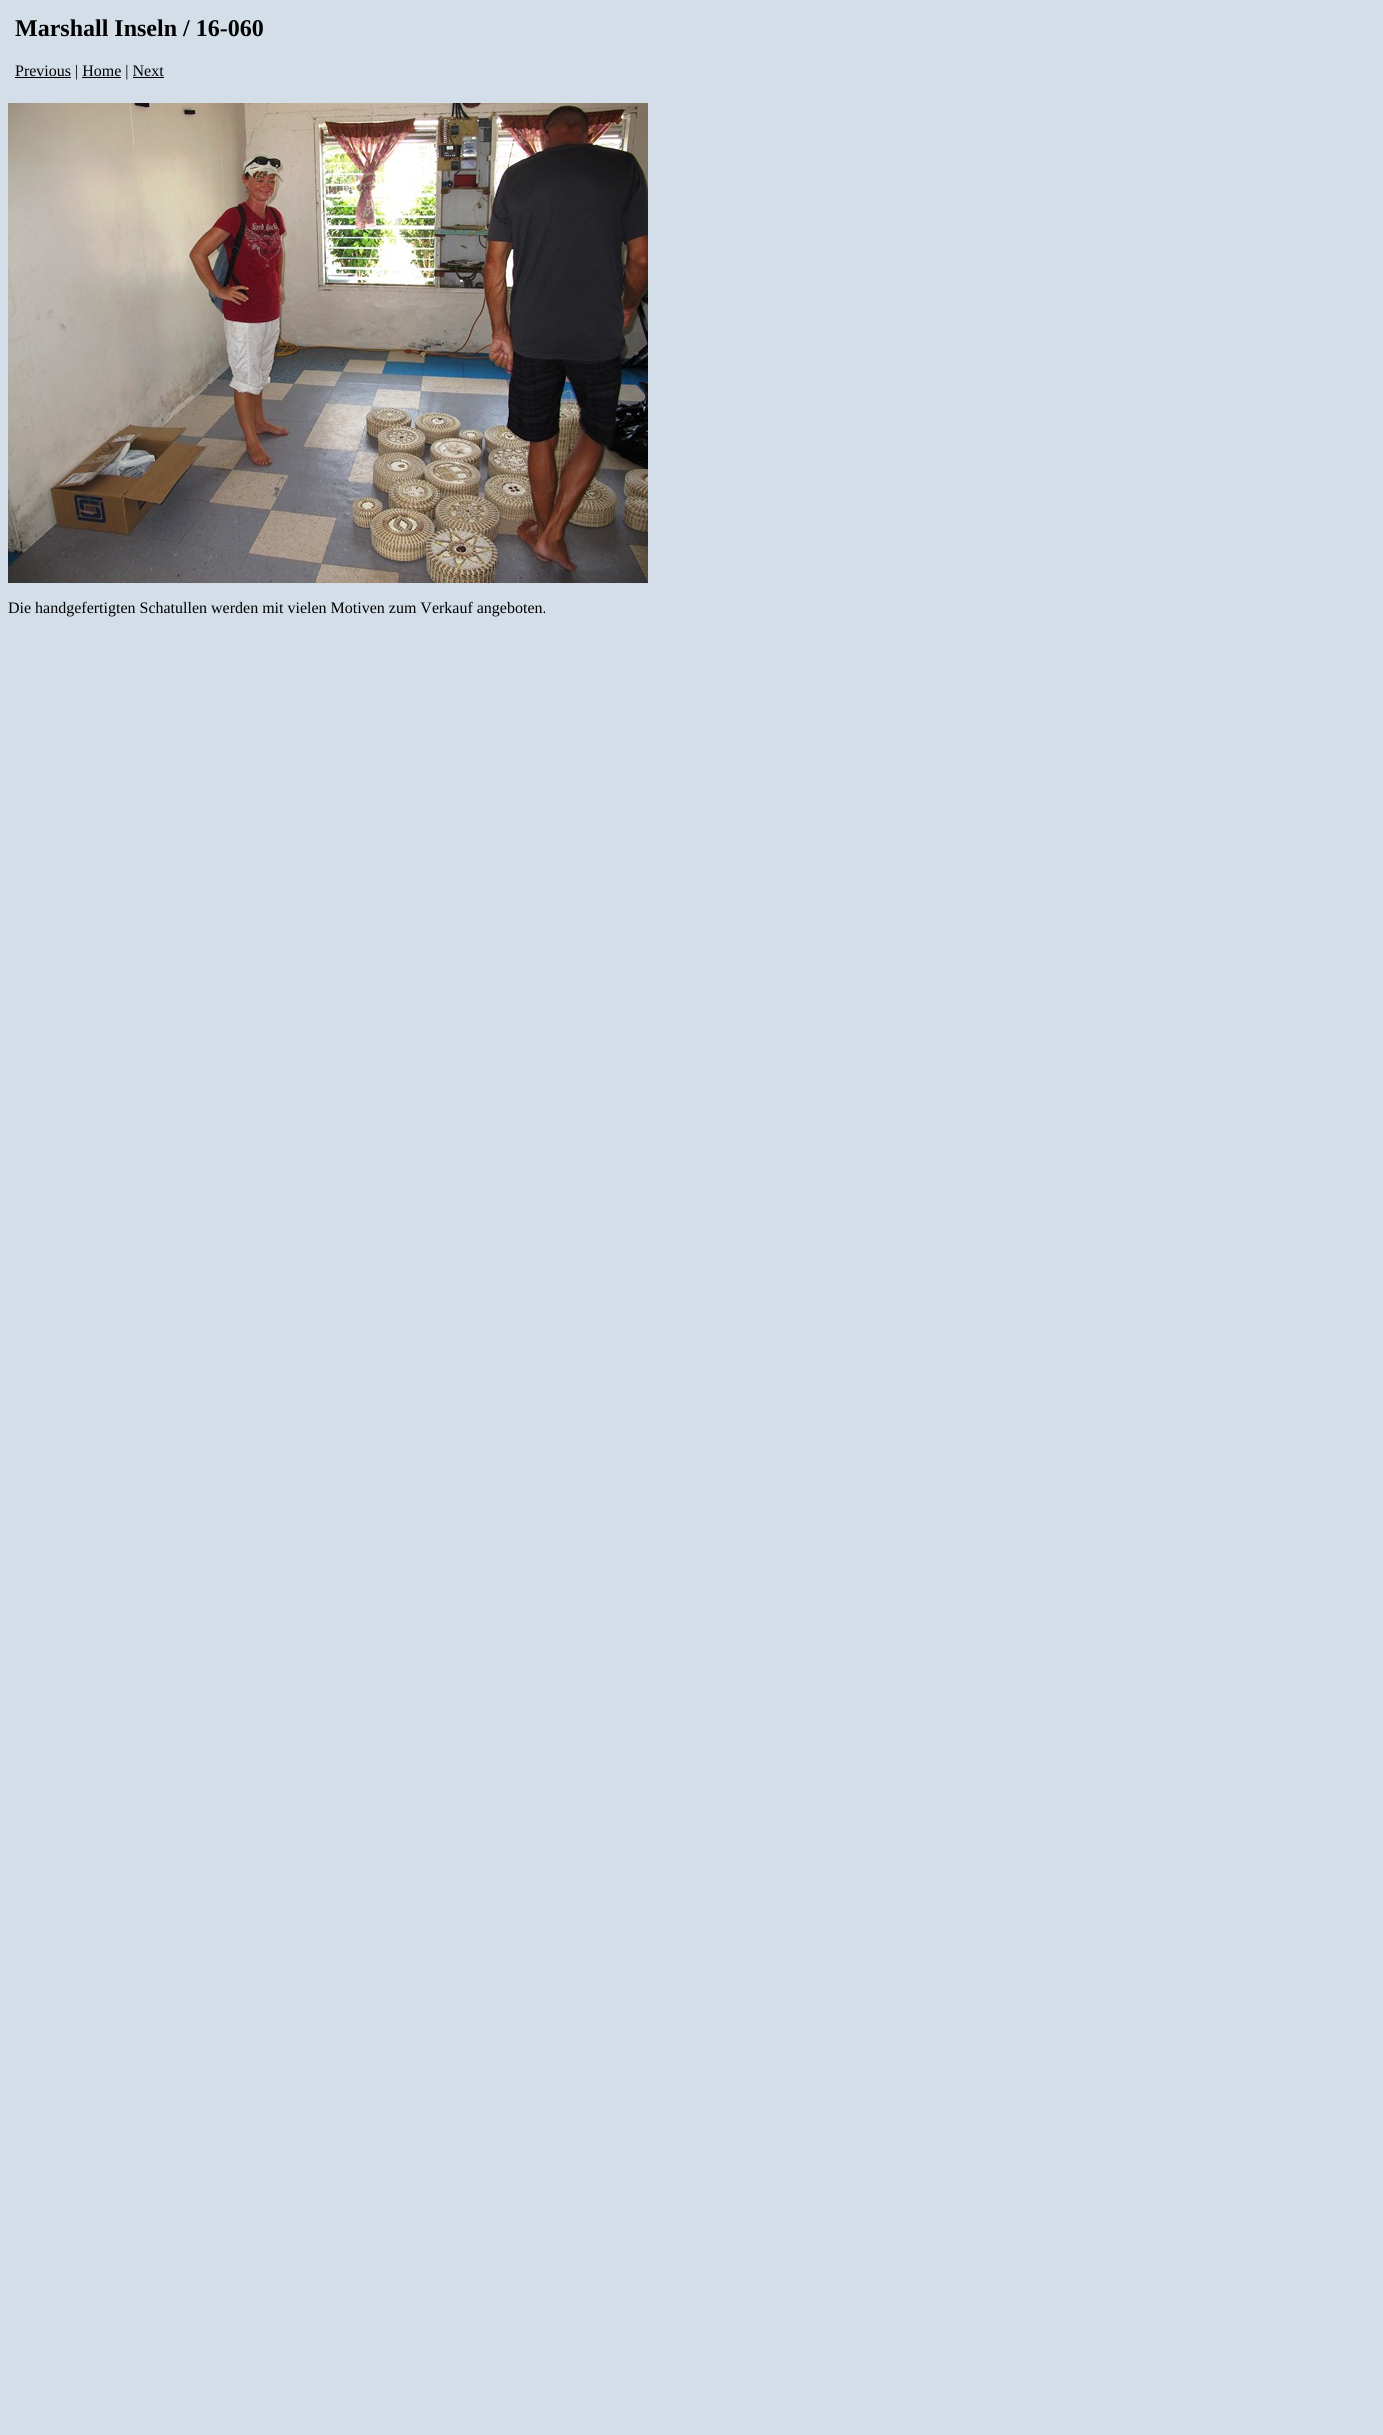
#include <cairo/cairo.h>
#include <math.h>
#include <stddef.h>


static void draw_image(cairo_t *cr, const char *path, double x, double y, double w, double h) {
  cairo_surface_t *image = cairo_image_surface_create_from_png(path);
  cairo_save(cr);
  cairo_set_source_surface(cr, image, x, y);
  cairo_rectangle(cr, x, y, w, h);
  cairo_fill(cr);
  cairo_restore(cr);
  cairo_surface_destroy(image);
}

static void draw(cairo_t *cr) {
  cairo_set_source_rgb(cr, 212 / 255.0, 222 / 255.0, 232 / 255.0);
  cairo_paint(cr);
  cairo_set_source_rgb(cr, 0, 0, 0);
  cairo_rectangle(cr, 15, 77, 56, 1);
  cairo_fill(cr);
  cairo_rectangle(cr, 82, 77, 39, 1);
  cairo_fill(cr);
  cairo_rectangle(cr, 133, 77, 31, 1);
  cairo_fill(cr);
  draw_image(cr, "images/1.png", 8, 103, 640, 480);
  cairo_select_font_face(cr, "Liberation Serif", CAIRO_FONT_SLANT_NORMAL, CAIRO_FONT_WEIGHT_BOLD);
  cairo_set_font_size(cr, 24);
  cairo_move_to(cr, 15, 36);
  cairo_show_text(cr, "Marshall Inseln / 16-060");
  cairo_select_font_face(cr, "Liberation Serif", CAIRO_FONT_SLANT_NORMAL, CAIRO_FONT_WEIGHT_NORMAL);
  cairo_set_font_size(cr, 16);
  cairo_move_to(cr, 15, 76);
  cairo_show_text(cr, "Previous | Home | Next");
  cairo_move_to(cr, 8, 613);
  cairo_show_text(cr, "Die handgefertigten Schatullen werden mit vielen Motiven zum Verkauf angeboten.");
}

int main(void) {
  cairo_surface_t *surface = cairo_image_surface_create(CAIRO_FORMAT_RGB24, 1383, 2435);
  cairo_t *cr = cairo_create(surface);
  cairo_font_options_t *options = cairo_font_options_create();
  cairo_font_options_set_hint_metrics(options, CAIRO_HINT_METRICS_OFF);
  cairo_font_options_set_hint_style(options, CAIRO_HINT_STYLE_NONE);
  cairo_set_font_options(cr, options);
  cairo_set_miter_limit(cr, 4);
  draw(cr);
  cairo_surface_write_to_png(surface, "out.png");
  cairo_font_options_destroy(options);
  cairo_destroy(cr);
  cairo_surface_destroy(surface);
  return 0;
}
